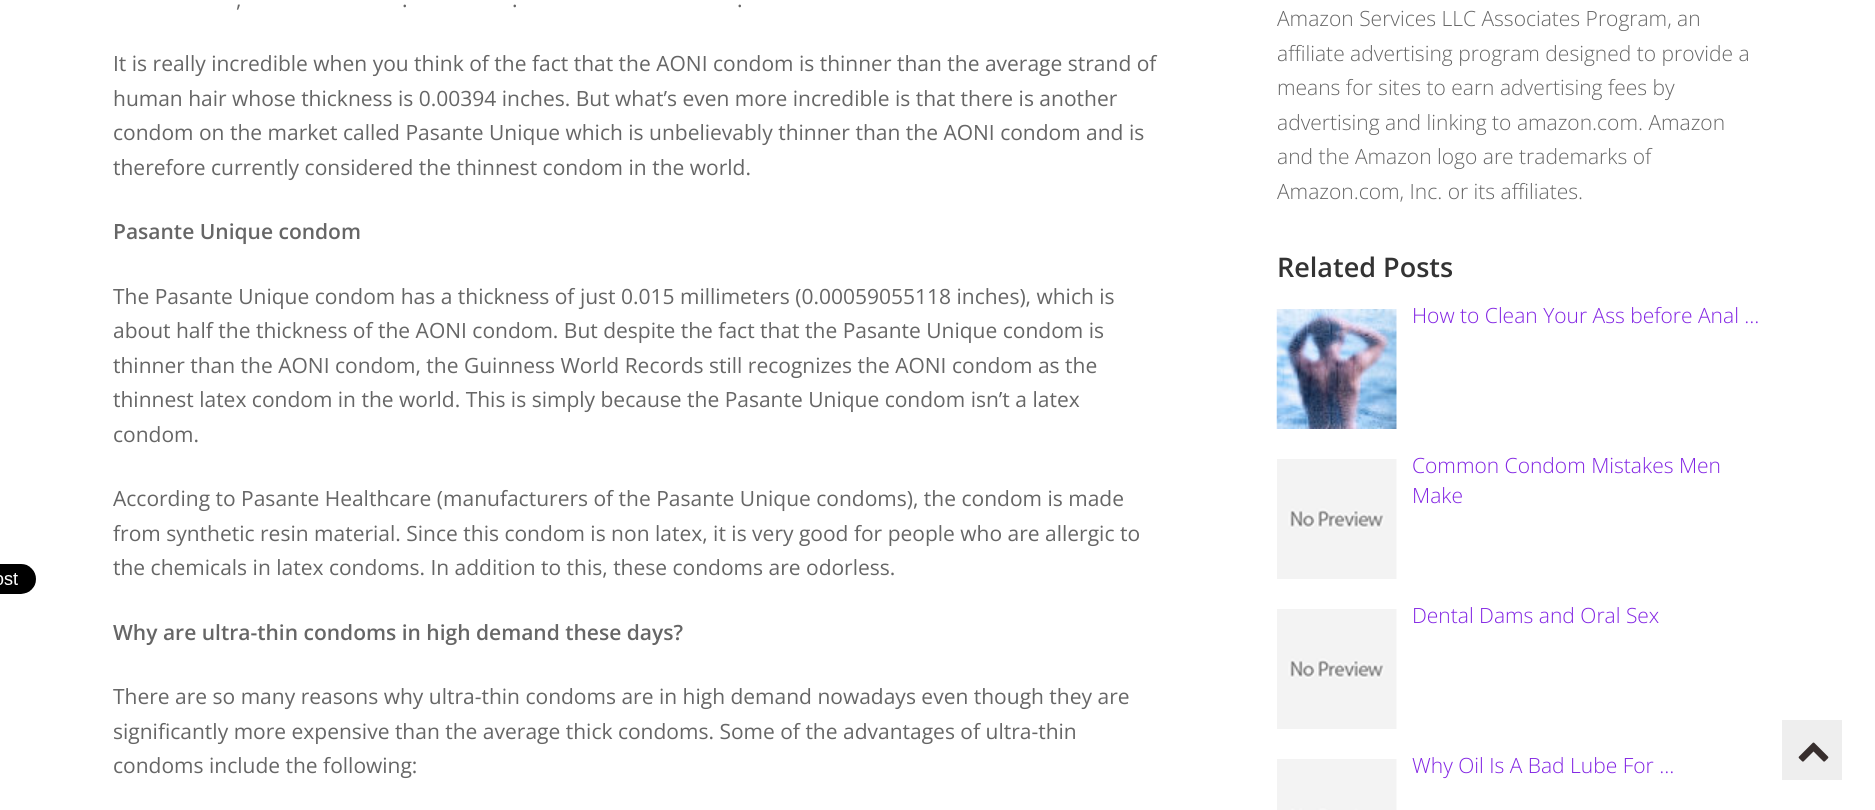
#include <cairo/cairo.h>
#include <math.h>
#include <stddef.h>


static void draw_image(cairo_t *cr, const char *path, double x, double y, double w, double h) {
  cairo_surface_t *image = cairo_image_surface_create_from_png(path);
  cairo_save(cr);
  cairo_set_source_surface(cr, image, x, y);
  cairo_rectangle(cr, x, y, w, h);
  cairo_fill(cr);
  cairo_restore(cr);
  cairo_surface_destroy(image);
}

static void draw(cairo_t *cr) {
  cairo_set_source_rgb(cr, 1, 1, 1);
  cairo_paint(cr);
  draw_image(cr, "images/1.png", 0, 564, 36, 30);
  draw_image(cr, "images/2.png", 1276, 309, 121, 120);
  draw_image(cr, "images/3.png", 1277, 459, 120, 120);
  draw_image(cr, "images/3.png", 1277, 609, 120, 120);
  draw_image(cr, "images/4.png", 1277, 759, 120, 51);
  cairo_set_source_rgb(cr, 238 / 255.0, 238 / 255.0, 238 / 255.0);
  cairo_rectangle(cr, 1782, 720, 60, 60);
  cairo_fill(cr);
  draw_image(cr, "images/5.png", 1798, 742, 31, 20);
  cairo_select_font_face(cr, "Open Sans", CAIRO_FONT_SLANT_NORMAL, CAIRO_FONT_WEIGHT_NORMAL);
  cairo_set_font_size(cr, 21);
  cairo_set_source_rgb(cr, 102 / 255.0, 102 / 255.0, 102 / 255.0);
  cairo_move_to(cr, 236, 7);
  cairo_show_text(cr, ",");
  cairo_move_to(cr, 402, 7);
  cairo_show_text(cr, ".");
  cairo_move_to(cr, 512, 7);
  cairo_show_text(cr, ".");
  cairo_move_to(cr, 737, 7);
  cairo_show_text(cr, ".");
  cairo_move_to(cr, 113, 71);
  cairo_show_text(cr, "It is really incredible when you think of the fact that the AONI condom is thinner than the average strand of");
  cairo_move_to(cr, 113, 106);
  cairo_show_text(cr, "human hair whose thickness is 0.00394 inches. But what’s even more incredible is that there is another");
  cairo_move_to(cr, 113, 140);
  cairo_show_text(cr, "condom on the market called Pasante Unique which is unbelievably thinner than the AONI condom and is");
  cairo_move_to(cr, 113, 175);
  cairo_show_text(cr, "therefore currently considered the thinnest condom in the world.");
  cairo_select_font_face(cr, "Open Sans SemiBold", CAIRO_FONT_SLANT_NORMAL, CAIRO_FONT_WEIGHT_NORMAL);
  cairo_move_to(cr, 113, 239);
  cairo_show_text(cr, "Pasante Unique condom");
  cairo_select_font_face(cr, "Open Sans", CAIRO_FONT_SLANT_NORMAL, CAIRO_FONT_WEIGHT_NORMAL);
  cairo_move_to(cr, 113, 304);
  cairo_show_text(cr, "The Pasante Unique condom has a thickness of just 0.015 millimeters (0.00059055118 inches), which is");
  cairo_move_to(cr, 113, 338);
  cairo_show_text(cr, "about half the thickness of the AONI condom. But despite the fact that the Pasante Unique condom is");
  cairo_move_to(cr, 113, 373);
  cairo_show_text(cr, "thinner than the AONI condom, the Guinness World Records still recognizes the AONI condom as the");
  cairo_move_to(cr, 113, 407);
  cairo_show_text(cr, "thinnest latex condom in the world. This is simply because the Pasante Unique condom isn’t a latex");
  cairo_move_to(cr, 113, 442);
  cairo_show_text(cr, "condom.");
  cairo_move_to(cr, 113, 506);
  cairo_show_text(cr, "According to Pasante Healthcare (manufacturers of the Pasante Unique condoms), the condom is made");
  cairo_move_to(cr, 113, 541);
  cairo_show_text(cr, "from synthetic resin material. Since this condom is non latex, it is very good for people who are allergic to");
  cairo_move_to(cr, 113, 575);
  cairo_show_text(cr, "the chemicals in latex condoms. In addition to this, these condoms are odorless.");
  cairo_select_font_face(cr, "Open Sans SemiBold", CAIRO_FONT_SLANT_NORMAL, CAIRO_FONT_WEIGHT_NORMAL);
  cairo_move_to(cr, 113, 640);
  cairo_show_text(cr, "Why are ultra-thin condoms in high demand these days?");
  cairo_select_font_face(cr, "Open Sans", CAIRO_FONT_SLANT_NORMAL, CAIRO_FONT_WEIGHT_NORMAL);
  cairo_move_to(cr, 113, 704);
  cairo_show_text(cr, "There are so many reasons why ultra-thin condoms are in high demand nowadays even though they are");
  cairo_move_to(cr, 113, 739);
  cairo_show_text(cr, "significantly more expensive than the average thick condoms. Some of the advantages of ultra-thin");
  cairo_move_to(cr, 113, 773);
  cairo_show_text(cr, "condoms include the following:");
  cairo_select_font_face(cr, "Open Sans Light", CAIRO_FONT_SLANT_NORMAL, CAIRO_FONT_WEIGHT_NORMAL);
  cairo_move_to(cr, 1277, 26);
  cairo_show_text(cr, "Amazon Services LLC Associates Program, an");
  cairo_move_to(cr, 1277, 61);
  cairo_show_text(cr, "affiliate advertising program designed to provide a");
  cairo_move_to(cr, 1277, 95);
  cairo_show_text(cr, "means for sites to earn advertising fees by");
  cairo_move_to(cr, 1277, 130);
  cairo_show_text(cr, "advertising and linking to amazon.com. Amazon");
  cairo_move_to(cr, 1277, 164);
  cairo_show_text(cr, "and the Amazon logo are trademarks of");
  cairo_move_to(cr, 1277, 199);
  cairo_show_text(cr, "Amazon.com, Inc. or its affiliates.");
  cairo_select_font_face(cr, "Open Sans SemiBold", CAIRO_FONT_SLANT_NORMAL, CAIRO_FONT_WEIGHT_NORMAL);
  cairo_set_font_size(cr, 27);
  cairo_set_source_rgb(cr, 51 / 255.0, 51 / 255.0, 51 / 255.0);
  cairo_move_to(cr, 1277, 277);
  cairo_show_text(cr, "Related Posts");
  cairo_select_font_face(cr, "Open Sans Light", CAIRO_FONT_SLANT_NORMAL, CAIRO_FONT_WEIGHT_NORMAL);
  cairo_set_font_size(cr, 21);
  cairo_set_source_rgb(cr, 130 / 255.0, 36 / 255.0, 227 / 255.0);
  cairo_move_to(cr, 1412, 323);
  cairo_show_text(cr, "How to Clean Your Ass before Anal …");
  cairo_move_to(cr, 1412, 473);
  cairo_show_text(cr, "Common Condom Mistakes Men");
  cairo_move_to(cr, 1412, 503);
  cairo_show_text(cr, "Make");
  cairo_move_to(cr, 1412, 623);
  cairo_show_text(cr, "Dental Dams and Oral Sex");
  cairo_move_to(cr, 1412, 773);
  cairo_show_text(cr, "Why Oil Is A Bad Lube For …");
}

int main(void) {
  cairo_surface_t *surface = cairo_image_surface_create(CAIRO_FORMAT_RGB24, 1875, 810);
  cairo_t *cr = cairo_create(surface);
  cairo_font_options_t *options = cairo_font_options_create();
  cairo_font_options_set_hint_metrics(options, CAIRO_HINT_METRICS_OFF);
  cairo_font_options_set_hint_style(options, CAIRO_HINT_STYLE_NONE);
  cairo_set_font_options(cr, options);
  cairo_set_miter_limit(cr, 4);
  draw(cr);
  cairo_surface_write_to_png(surface, "out.png");
  cairo_font_options_destroy(options);
  cairo_destroy(cr);
  cairo_surface_destroy(surface);
  return 0;
}
